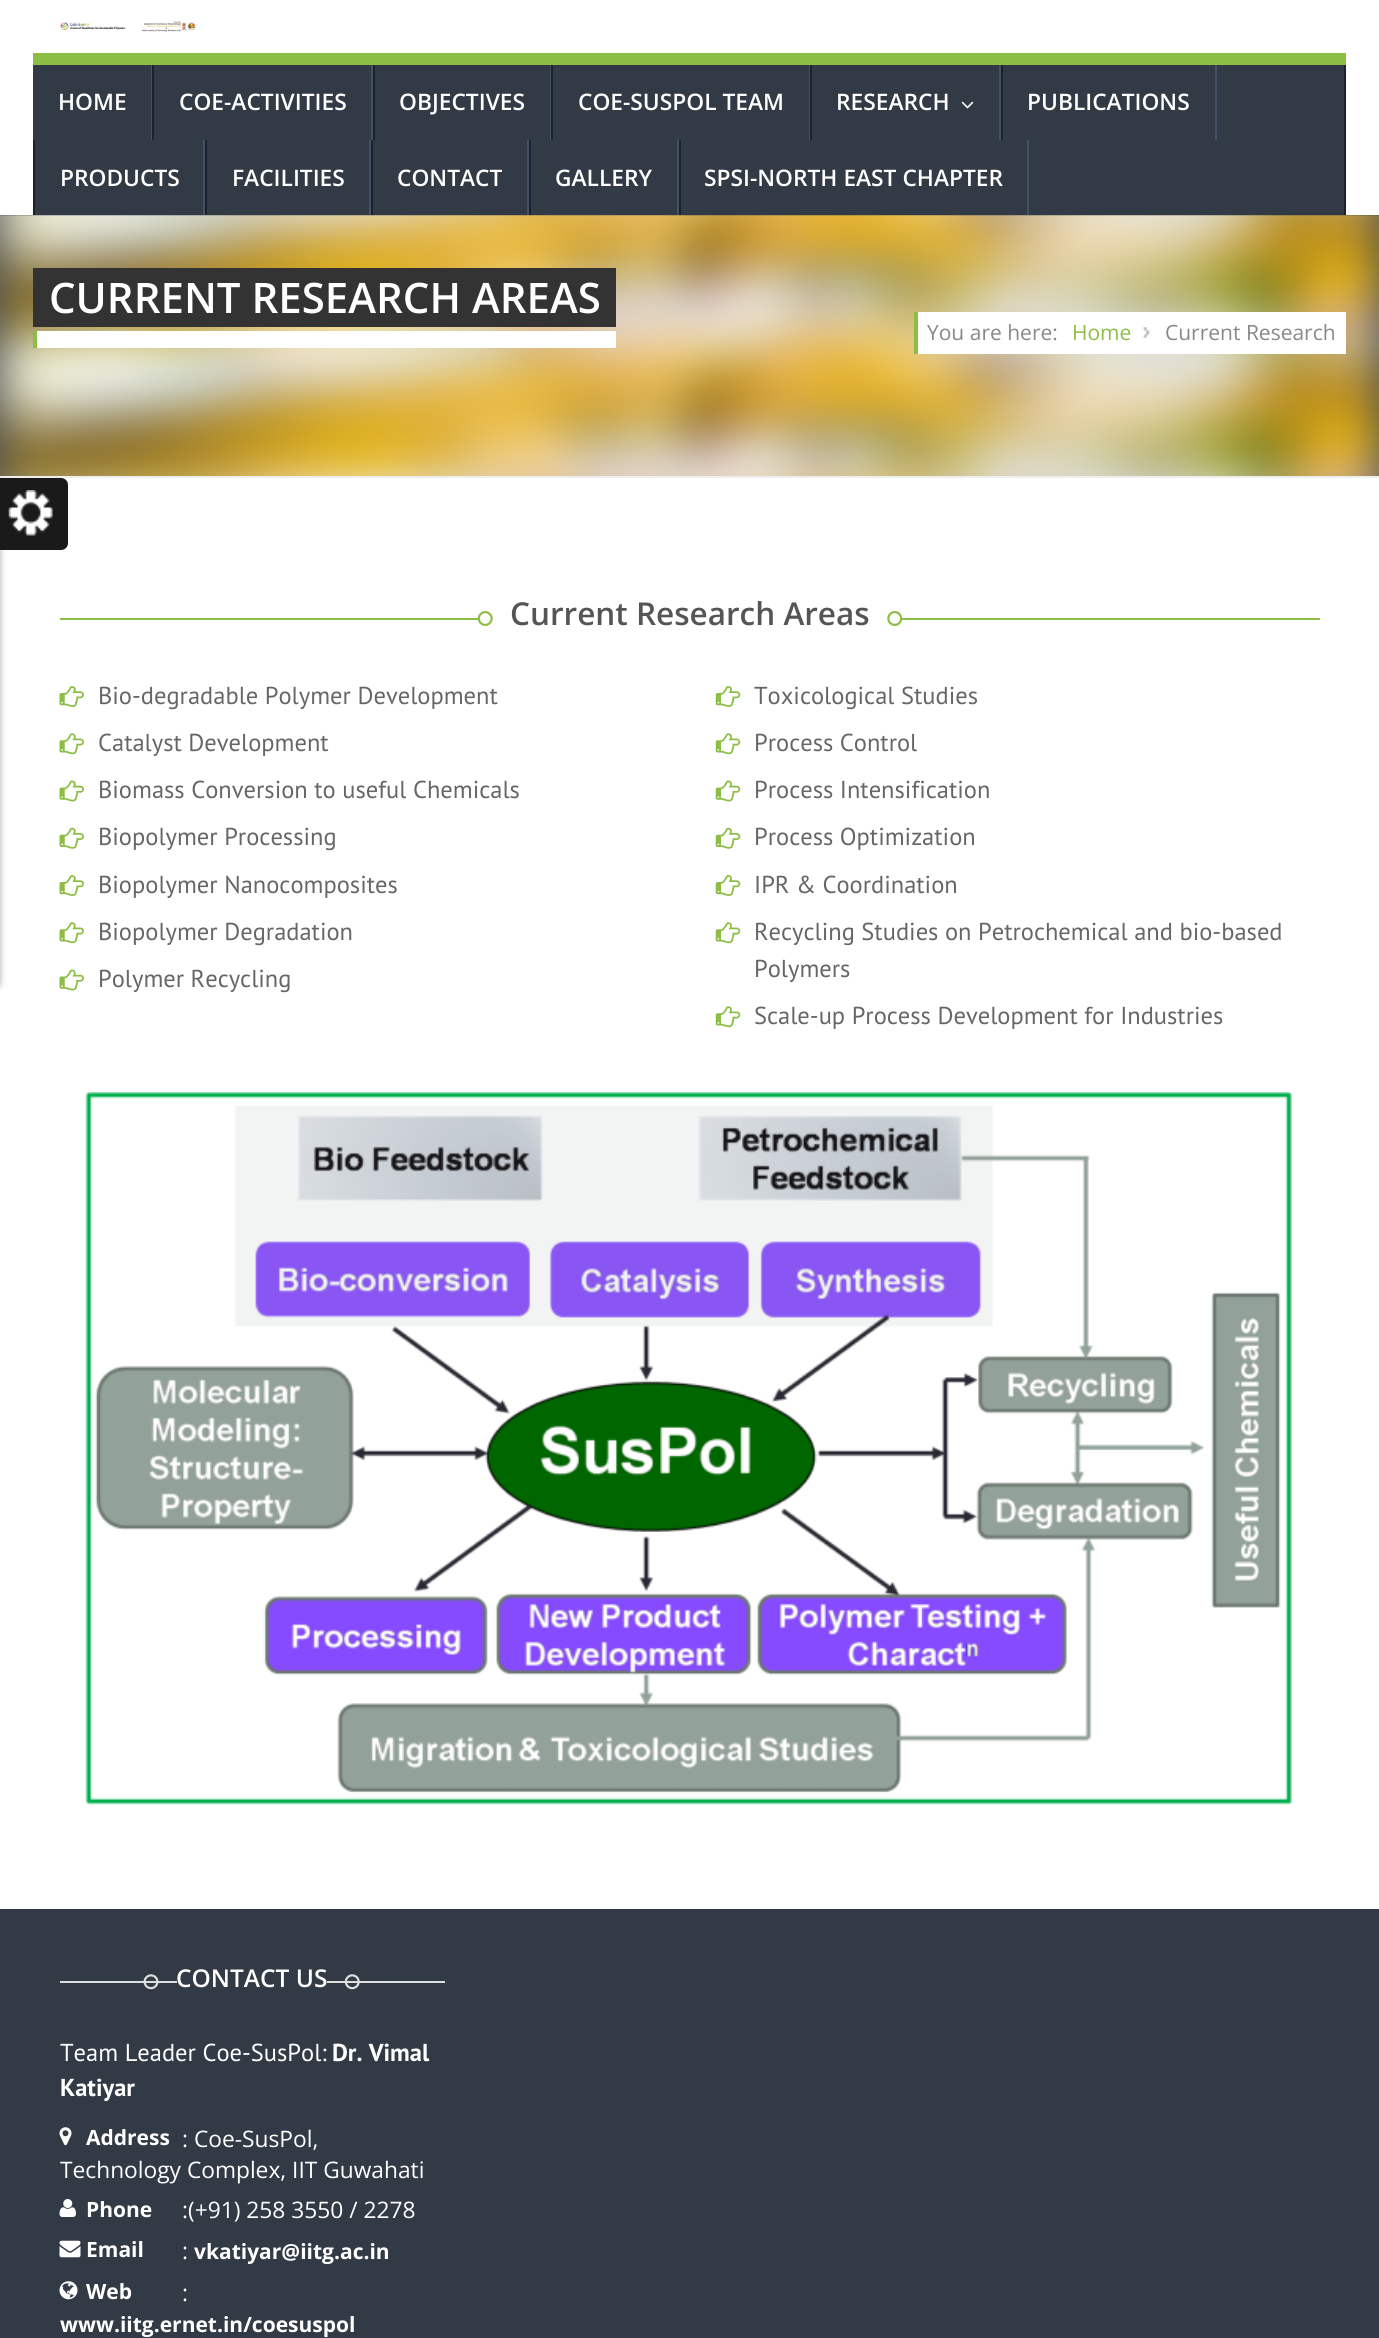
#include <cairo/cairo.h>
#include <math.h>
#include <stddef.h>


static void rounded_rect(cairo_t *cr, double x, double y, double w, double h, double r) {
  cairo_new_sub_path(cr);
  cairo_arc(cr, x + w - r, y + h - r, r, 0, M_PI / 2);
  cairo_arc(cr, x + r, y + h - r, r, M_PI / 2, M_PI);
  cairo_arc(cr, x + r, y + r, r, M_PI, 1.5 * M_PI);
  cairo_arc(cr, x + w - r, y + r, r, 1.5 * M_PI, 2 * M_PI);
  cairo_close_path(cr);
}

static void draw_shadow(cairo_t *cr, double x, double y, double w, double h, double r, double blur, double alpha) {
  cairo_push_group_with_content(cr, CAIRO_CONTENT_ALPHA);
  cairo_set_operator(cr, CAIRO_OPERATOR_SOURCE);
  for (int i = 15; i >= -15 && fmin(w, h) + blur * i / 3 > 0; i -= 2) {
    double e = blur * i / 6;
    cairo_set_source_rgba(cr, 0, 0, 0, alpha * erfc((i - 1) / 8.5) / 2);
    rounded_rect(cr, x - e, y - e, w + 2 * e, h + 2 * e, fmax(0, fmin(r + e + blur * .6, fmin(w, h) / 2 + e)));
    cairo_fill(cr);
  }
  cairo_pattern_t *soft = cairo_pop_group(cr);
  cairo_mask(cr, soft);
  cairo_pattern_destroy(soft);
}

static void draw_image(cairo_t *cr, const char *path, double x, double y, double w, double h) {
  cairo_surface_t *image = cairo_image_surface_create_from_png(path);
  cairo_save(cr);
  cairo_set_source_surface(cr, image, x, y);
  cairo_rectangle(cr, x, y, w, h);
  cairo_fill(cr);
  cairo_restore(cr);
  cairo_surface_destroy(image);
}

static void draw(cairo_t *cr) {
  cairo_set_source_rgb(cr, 1, 1, 1);
  cairo_paint(cr);
  draw_image(cr, "images/1.png", 60, 21, 136, 11);
  cairo_set_source_rgb(cr, 50 / 255.0, 58 / 255.0, 69 / 255.0);
  cairo_rectangle(cr, 33, 65, 1311, 150);
  cairo_fill(cr);
  cairo_set_source_rgb(cr, 140 / 255.0, 190 / 255.0, 69 / 255.0);
  cairo_rectangle(cr, 33, 53, 1313, 12);
  cairo_fill(cr);
  cairo_set_source_rgb(cr, 25 / 255.0, 34 / 255.0, 45 / 255.0);
  cairo_rectangle(cr, 1344, 65, 2, 150);
  cairo_fill(cr);
  cairo_set_source_rgb(cr, 66 / 255.0, 81 / 255.0, 102 / 255.0);
  cairo_rectangle(cr, 151, 65, 1, 75);
  cairo_fill(cr);
  cairo_rectangle(cr, 371, 65, 2, 75);
  cairo_fill(cr);
  cairo_set_source_rgb(cr, 25 / 255.0, 34 / 255.0, 45 / 255.0);
  cairo_rectangle(cr, 152, 65, 2, 75);
  cairo_fill(cr);
  cairo_set_source_rgb(cr, 66 / 255.0, 81 / 255.0, 102 / 255.0);
  cairo_rectangle(cr, 550, 65, 1, 75);
  cairo_fill(cr);
  cairo_set_source_rgb(cr, 25 / 255.0, 34 / 255.0, 45 / 255.0);
  cairo_rectangle(cr, 373, 65, 2, 75);
  cairo_fill(cr);
  cairo_set_source_rgb(cr, 66 / 255.0, 81 / 255.0, 102 / 255.0);
  cairo_rectangle(cr, 809, 65, 1, 75);
  cairo_fill(cr);
  cairo_set_source_rgb(cr, 25 / 255.0, 34 / 255.0, 45 / 255.0);
  cairo_rectangle(cr, 551, 65, 2, 75);
  cairo_fill(cr);
  cairo_set_source_rgb(cr, 66 / 255.0, 81 / 255.0, 102 / 255.0);
  cairo_rectangle(cr, 999, 65, 2, 75);
  cairo_fill(cr);
  cairo_set_source_rgb(cr, 25 / 255.0, 34 / 255.0, 45 / 255.0);
  cairo_rectangle(cr, 810, 65, 2, 75);
  cairo_fill(cr);
  draw_image(cr, "images/2.png", 961, 101, 13, 8);
  cairo_set_source_rgb(cr, 66 / 255.0, 81 / 255.0, 102 / 255.0);
  cairo_rectangle(cr, 1215, 65, 2, 75);
  cairo_fill(cr);
  cairo_set_source_rgb(cr, 25 / 255.0, 34 / 255.0, 45 / 255.0);
  cairo_rectangle(cr, 1001, 65, 2, 75);
  cairo_fill(cr);
  cairo_set_source_rgb(cr, 66 / 255.0, 81 / 255.0, 102 / 255.0);
  cairo_rectangle(cr, 203, 140, 2, 75);
  cairo_fill(cr);
  cairo_set_source_rgb(cr, 25 / 255.0, 34 / 255.0, 45 / 255.0);
  cairo_rectangle(cr, 33, 140, 2, 75);
  cairo_fill(cr);
  cairo_set_source_rgb(cr, 66 / 255.0, 81 / 255.0, 102 / 255.0);
  cairo_rectangle(cr, 369, 140, 2, 75);
  cairo_fill(cr);
  cairo_set_source_rgb(cr, 25 / 255.0, 34 / 255.0, 45 / 255.0);
  cairo_rectangle(cr, 205, 140, 2, 75);
  cairo_fill(cr);
  cairo_set_source_rgb(cr, 66 / 255.0, 81 / 255.0, 102 / 255.0);
  cairo_rectangle(cr, 527, 140, 2, 75);
  cairo_fill(cr);
  cairo_set_source_rgb(cr, 25 / 255.0, 34 / 255.0, 45 / 255.0);
  cairo_rectangle(cr, 371, 140, 2, 75);
  cairo_fill(cr);
  cairo_set_source_rgb(cr, 66 / 255.0, 81 / 255.0, 102 / 255.0);
  cairo_rectangle(cr, 677, 140, 2, 75);
  cairo_fill(cr);
  cairo_set_source_rgb(cr, 25 / 255.0, 34 / 255.0, 45 / 255.0);
  cairo_rectangle(cr, 529, 140, 2, 75);
  cairo_fill(cr);
  cairo_set_source_rgb(cr, 66 / 255.0, 81 / 255.0, 102 / 255.0);
  cairo_rectangle(cr, 1027, 140, 2, 75);
  cairo_fill(cr);
  cairo_set_source_rgb(cr, 25 / 255.0, 34 / 255.0, 45 / 255.0);
  cairo_rectangle(cr, 679, 140, 2, 75);
  cairo_fill(cr);
  cairo_set_source_rgb(cr, 60 / 255.0, 67 / 255.0, 77 / 255.0);
  cairo_rectangle(cr, 0, 215, 1379, 261);
  cairo_fill(cr);
  cairo_set_source_rgb(cr, 238 / 255.0, 238 / 255.0, 238 / 255.0);
  cairo_rectangle(cr, 0, 476, 1379, 2);
  cairo_fill(cr);
  draw_image(cr, "images/4.png", 0, 215, 1379, 261);
  cairo_set_source_rgb(cr, 51 / 255.0, 51 / 255.0, 51 / 255.0);
  draw_shadow(cr, -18, 478, 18, 511, 7, 3.5, 0.4);
  cairo_set_source_rgb(cr, 27 / 255.0, 26 / 255.0, 26 / 255.0);
  cairo_new_path(cr);
  cairo_move_to(cr, 0, 478);
  cairo_line_to(cr, 61, 478);
  cairo_curve_to(cr, 65, 478, 68, 481, 68, 485);
  cairo_line_to(cr, 68, 543);
  cairo_curve_to(cr, 68, 547, 65, 550, 61, 550);
  cairo_line_to(cr, 0, 550);
  cairo_close_path(cr);
  cairo_fill(cr);
  draw_image(cr, "images/3.png", 8, 490, 45, 46);
  cairo_set_source_rgb(cr, 51 / 255.0, 51 / 255.0, 51 / 255.0);
  cairo_rectangle(cr, 33, 268, 583, 59);
  cairo_fill(cr);
  cairo_set_source_rgb(cr, 1, 1, 1);
  cairo_rectangle(cr, 37, 331, 579, 17);
  cairo_fill(cr);
  cairo_set_source_rgb(cr, 140 / 255.0, 190 / 255.0, 69 / 255.0);
  cairo_rectangle(cr, 33, 331, 4, 17);
  cairo_fill(cr);
  cairo_set_source_rgb(cr, 1, 1, 1);
  cairo_rectangle(cr, 918, 312, 428, 42);
  cairo_fill(cr);
  cairo_set_source_rgb(cr, 140 / 255.0, 190 / 255.0, 69 / 255.0);
  cairo_rectangle(cr, 914, 312, 4, 42);
  cairo_fill(cr);
  draw_image(cr, "images/5.png", 1142, 327, 8, 11);
  cairo_rectangle(cr, 60, 618, 1260, 2);
  cairo_fill(cr);
  cairo_set_source_rgb(cr, 1, 1, 1);
  cairo_rectangle(cr, 478, 618, 423, 2);
  cairo_fill(cr);
  draw_image(cr, "images/6.png", 477, 611, 16, 15);
  draw_image(cr, "images/7.png", 887, 611, 16, 15);
  draw_image(cr, "images/8.png", 59, 686, 25, 21);
  draw_image(cr, "images/9.png", 59, 733, 25, 22);
  draw_image(cr, "images/10.png", 59, 780, 25, 22);
  draw_image(cr, "images/11.png", 59, 827, 25, 22);
  draw_image(cr, "images/8.png", 59, 875, 25, 21);
  draw_image(cr, "images/9.png", 59, 922, 25, 22);
  draw_image(cr, "images/10.png", 59, 969, 25, 22);
  draw_image(cr, "images/12.png", 715, 686, 26, 21);
  draw_image(cr, "images/13.png", 715, 733, 26, 22);
  draw_image(cr, "images/14.png", 715, 780, 26, 22);
  draw_image(cr, "images/15.png", 715, 827, 26, 22);
  draw_image(cr, "images/12.png", 715, 875, 26, 21);
  draw_image(cr, "images/13.png", 715, 922, 26, 22);
  draw_image(cr, "images/13.png", 715, 1006, 26, 22);
  draw_image(cr, "images/16.png", 85, 1092, 1207, 713);
  cairo_set_source_rgb(cr, 50 / 255.0, 58 / 255.0, 69 / 255.0);
  cairo_rectangle(cr, 0, 1909, 1379, 429);
  cairo_fill(cr);
  cairo_set_source_rgb(cr, 223 / 255.0, 223 / 255.0, 223 / 255.0);
  cairo_rectangle(cr, 60, 1981, 385, 2);
  cairo_fill(cr);
  cairo_set_source_rgb(cr, 50 / 255.0, 58 / 255.0, 69 / 255.0);
  cairo_rectangle(cr, 177, 1981, 150, 2);
  cairo_fill(cr);
  draw_image(cr, "images/17.png", 143, 1974, 16, 16);
  draw_image(cr, "images/18.png", 344, 1974, 16, 16);
  draw_image(cr, "images/19.png", 59, 2127, 13, 19);
  draw_image(cr, "images/20.png", 59, 2199, 17, 18);
  draw_image(cr, "images/21.png", 59, 2240, 22, 18);
  draw_image(cr, "images/22.png", 59, 2281, 19, 19);
  cairo_select_font_face(cr, "Open Sans SemiBold", CAIRO_FONT_SLANT_NORMAL, CAIRO_FONT_WEIGHT_NORMAL);
  cairo_set_font_size(cr, 22.75);
  cairo_set_source_rgb(cr, 1, 1, 1);
  cairo_move_to(cr, 58, 110);
  cairo_show_text(cr, "HOME");
  cairo_move_to(cr, 179, 110);
  cairo_show_text(cr, "COE-ACTIVITIES");
  cairo_move_to(cr, 399, 110);
  cairo_show_text(cr, "OBJECTIVES");
  cairo_move_to(cr, 578, 110);
  cairo_show_text(cr, "COE-SUSPOL TEAM");
  cairo_move_to(cr, 836, 110);
  cairo_show_text(cr, "RESEARCH");
  cairo_move_to(cr, 1027, 110);
  cairo_show_text(cr, "PUBLICATIONS");
  cairo_move_to(cr, 60, 186);
  cairo_show_text(cr, "PRODUCTS");
  cairo_move_to(cr, 232, 186);
  cairo_show_text(cr, "FACILITIES");
  cairo_move_to(cr, 397, 186);
  cairo_show_text(cr, "CONTACT");
  cairo_move_to(cr, 555, 186);
  cairo_show_text(cr, "GALLERY");
  cairo_move_to(cr, 704, 186);
  cairo_show_text(cr, "SPSI-NORTH EAST CHAPTER");
  cairo_set_font_size(cr, 42);
  cairo_move_to(cr, 49, 313);
  cairo_show_text(cr, "CURRENT RESEARCH AREAS");
  cairo_select_font_face(cr, "Open Sans", CAIRO_FONT_SLANT_NORMAL, CAIRO_FONT_WEIGHT_NORMAL);
  cairo_set_font_size(cr, 21);
  cairo_set_source_rgb(cr, 136 / 255.0, 136 / 255.0, 136 / 255.0);
  cairo_move_to(cr, 927, 340);
  cairo_show_text(cr, "You are here:");
  cairo_set_source_rgb(cr, 140 / 255.0, 190 / 255.0, 69 / 255.0);
  cairo_move_to(cr, 1072, 340);
  cairo_show_text(cr, "Home");
  cairo_set_source_rgb(cr, 136 / 255.0, 136 / 255.0, 136 / 255.0);
  cairo_move_to(cr, 1165, 340);
  cairo_show_text(cr, "Current Research");
  cairo_select_font_face(cr, "Open Sans SemiBold", CAIRO_FONT_SLANT_NORMAL, CAIRO_FONT_WEIGHT_NORMAL);
  cairo_set_font_size(cr, 31.5);
  cairo_set_source_rgb(cr, 85 / 255.0, 85 / 255.0, 85 / 255.0);
  cairo_move_to(cr, 510, 625);
  cairo_show_text(cr, "Current Research Areas");
  cairo_select_font_face(cr, "PT Sans", CAIRO_FONT_SLANT_NORMAL, CAIRO_FONT_WEIGHT_NORMAL);
  cairo_set_font_size(cr, 24.5);
  cairo_set_source_rgb(cr, 102 / 255.0, 102 / 255.0, 102 / 255.0);
  cairo_move_to(cr, 98, 704);
  cairo_show_text(cr, "Bio-degradable Polymer Development");
  cairo_move_to(cr, 98, 751);
  cairo_show_text(cr, "Catalyst Development");
  cairo_move_to(cr, 98, 798);
  cairo_show_text(cr, "Biomass Conversion to useful Chemicals");
  cairo_move_to(cr, 98, 845);
  cairo_show_text(cr, "Biopolymer Processing");
  cairo_move_to(cr, 98, 893);
  cairo_show_text(cr, "Biopolymer Nanocomposites");
  cairo_move_to(cr, 98, 940);
  cairo_show_text(cr, "Biopolymer Degradation");
  cairo_move_to(cr, 98, 987);
  cairo_show_text(cr, "Polymer Recycling");
  cairo_move_to(cr, 754, 704);
  cairo_show_text(cr, "Toxicological Studies");
  cairo_move_to(cr, 754, 751);
  cairo_show_text(cr, "Process Control");
  cairo_move_to(cr, 754, 798);
  cairo_show_text(cr, "Process Intensification");
  cairo_move_to(cr, 754, 845);
  cairo_show_text(cr, "Process Optimization");
  cairo_move_to(cr, 754, 893);
  cairo_show_text(cr, "IPR & Coordination");
  cairo_move_to(cr, 754, 940);
  cairo_show_text(cr, "Recycling Studies on Petrochemical and bio-based");
  cairo_move_to(cr, 754, 977);
  cairo_show_text(cr, "Polymers");
  cairo_move_to(cr, 754, 1024);
  cairo_show_text(cr, "Scale-up Process Development for Industries");
  cairo_select_font_face(cr, "Open Sans SemiBold", CAIRO_FONT_SLANT_NORMAL, CAIRO_FONT_WEIGHT_NORMAL);
  cairo_set_source_rgb(cr, 1, 1, 1);
  cairo_move_to(cr, 176, 1987);
  cairo_show_text(cr, "CONTACT US");
  cairo_select_font_face(cr, "PT Sans", CAIRO_FONT_SLANT_NORMAL, CAIRO_FONT_WEIGHT_NORMAL);
  cairo_move_to(cr, 60, 2061);
  cairo_show_text(cr, "Team Leader Coe-SusPol:");
  cairo_select_font_face(cr, "PT Sans", CAIRO_FONT_SLANT_NORMAL, CAIRO_FONT_WEIGHT_BOLD);
  cairo_move_to(cr, 332, 2061);
  cairo_show_text(cr, "Dr. Vimal");
  cairo_move_to(cr, 60, 2096);
  cairo_show_text(cr, "Katiyar");
  cairo_select_font_face(cr, "Open Sans", CAIRO_FONT_SLANT_NORMAL, CAIRO_FONT_WEIGHT_BOLD);
  cairo_set_font_size(cr, 21);
  cairo_move_to(cr, 86, 2145);
  cairo_show_text(cr, "Address");
  cairo_select_font_face(cr, "Open Sans", CAIRO_FONT_SLANT_NORMAL, CAIRO_FONT_WEIGHT_NORMAL);
  cairo_set_font_size(cr, 22.75);
  cairo_move_to(cr, 182, 2147);
  cairo_show_text(cr, ": Coe-SusPol,");
  cairo_move_to(cr, 60, 2178);
  cairo_show_text(cr, "Technology Complex, IIT Guwahati");
  cairo_select_font_face(cr, "Open Sans", CAIRO_FONT_SLANT_NORMAL, CAIRO_FONT_WEIGHT_BOLD);
  cairo_set_font_size(cr, 21);
  cairo_move_to(cr, 86, 2217);
  cairo_show_text(cr, "Phone");
  cairo_select_font_face(cr, "Open Sans", CAIRO_FONT_SLANT_NORMAL, CAIRO_FONT_WEIGHT_NORMAL);
  cairo_set_font_size(cr, 22.75);
  cairo_move_to(cr, 182, 2218);
  cairo_show_text(cr, ":(+91) 258 3550 / 2278");
  cairo_select_font_face(cr, "Open Sans", CAIRO_FONT_SLANT_NORMAL, CAIRO_FONT_WEIGHT_BOLD);
  cairo_set_font_size(cr, 21);
  cairo_move_to(cr, 86, 2257);
  cairo_show_text(cr, "Email");
  cairo_select_font_face(cr, "Open Sans", CAIRO_FONT_SLANT_NORMAL, CAIRO_FONT_WEIGHT_NORMAL);
  cairo_set_font_size(cr, 22.75);
  cairo_move_to(cr, 182, 2259);
  cairo_show_text(cr, ":");
  cairo_select_font_face(cr, "Open Sans", CAIRO_FONT_SLANT_NORMAL, CAIRO_FONT_WEIGHT_BOLD);
  cairo_set_font_size(cr, 21);
  cairo_move_to(cr, 194, 2259);
  cairo_show_text(cr, "vkatiyar@iitg.ac.in");
  cairo_move_to(cr, 86, 2299);
  cairo_show_text(cr, "Web");
  cairo_select_font_face(cr, "Open Sans", CAIRO_FONT_SLANT_NORMAL, CAIRO_FONT_WEIGHT_NORMAL);
  cairo_set_font_size(cr, 22.75);
  cairo_move_to(cr, 182, 2301);
  cairo_show_text(cr, ":");
  cairo_select_font_face(cr, "Open Sans", CAIRO_FONT_SLANT_NORMAL, CAIRO_FONT_WEIGHT_BOLD);
  cairo_set_font_size(cr, 21);
  cairo_move_to(cr, 60, 2332);
  cairo_show_text(cr, "www.iitg.ernet.in/coesuspol");
}

int main(void) {
  cairo_surface_t *surface = cairo_image_surface_create(CAIRO_FORMAT_RGB24, 1379, 2338);
  cairo_t *cr = cairo_create(surface);
  cairo_font_options_t *options = cairo_font_options_create();
  cairo_font_options_set_hint_metrics(options, CAIRO_HINT_METRICS_OFF);
  cairo_font_options_set_hint_style(options, CAIRO_HINT_STYLE_NONE);
  cairo_set_font_options(cr, options);
  cairo_set_miter_limit(cr, 4);
  draw(cr);
  cairo_surface_write_to_png(surface, "out.png");
  cairo_font_options_destroy(options);
  cairo_destroy(cr);
  cairo_surface_destroy(surface);
  return 0;
}
